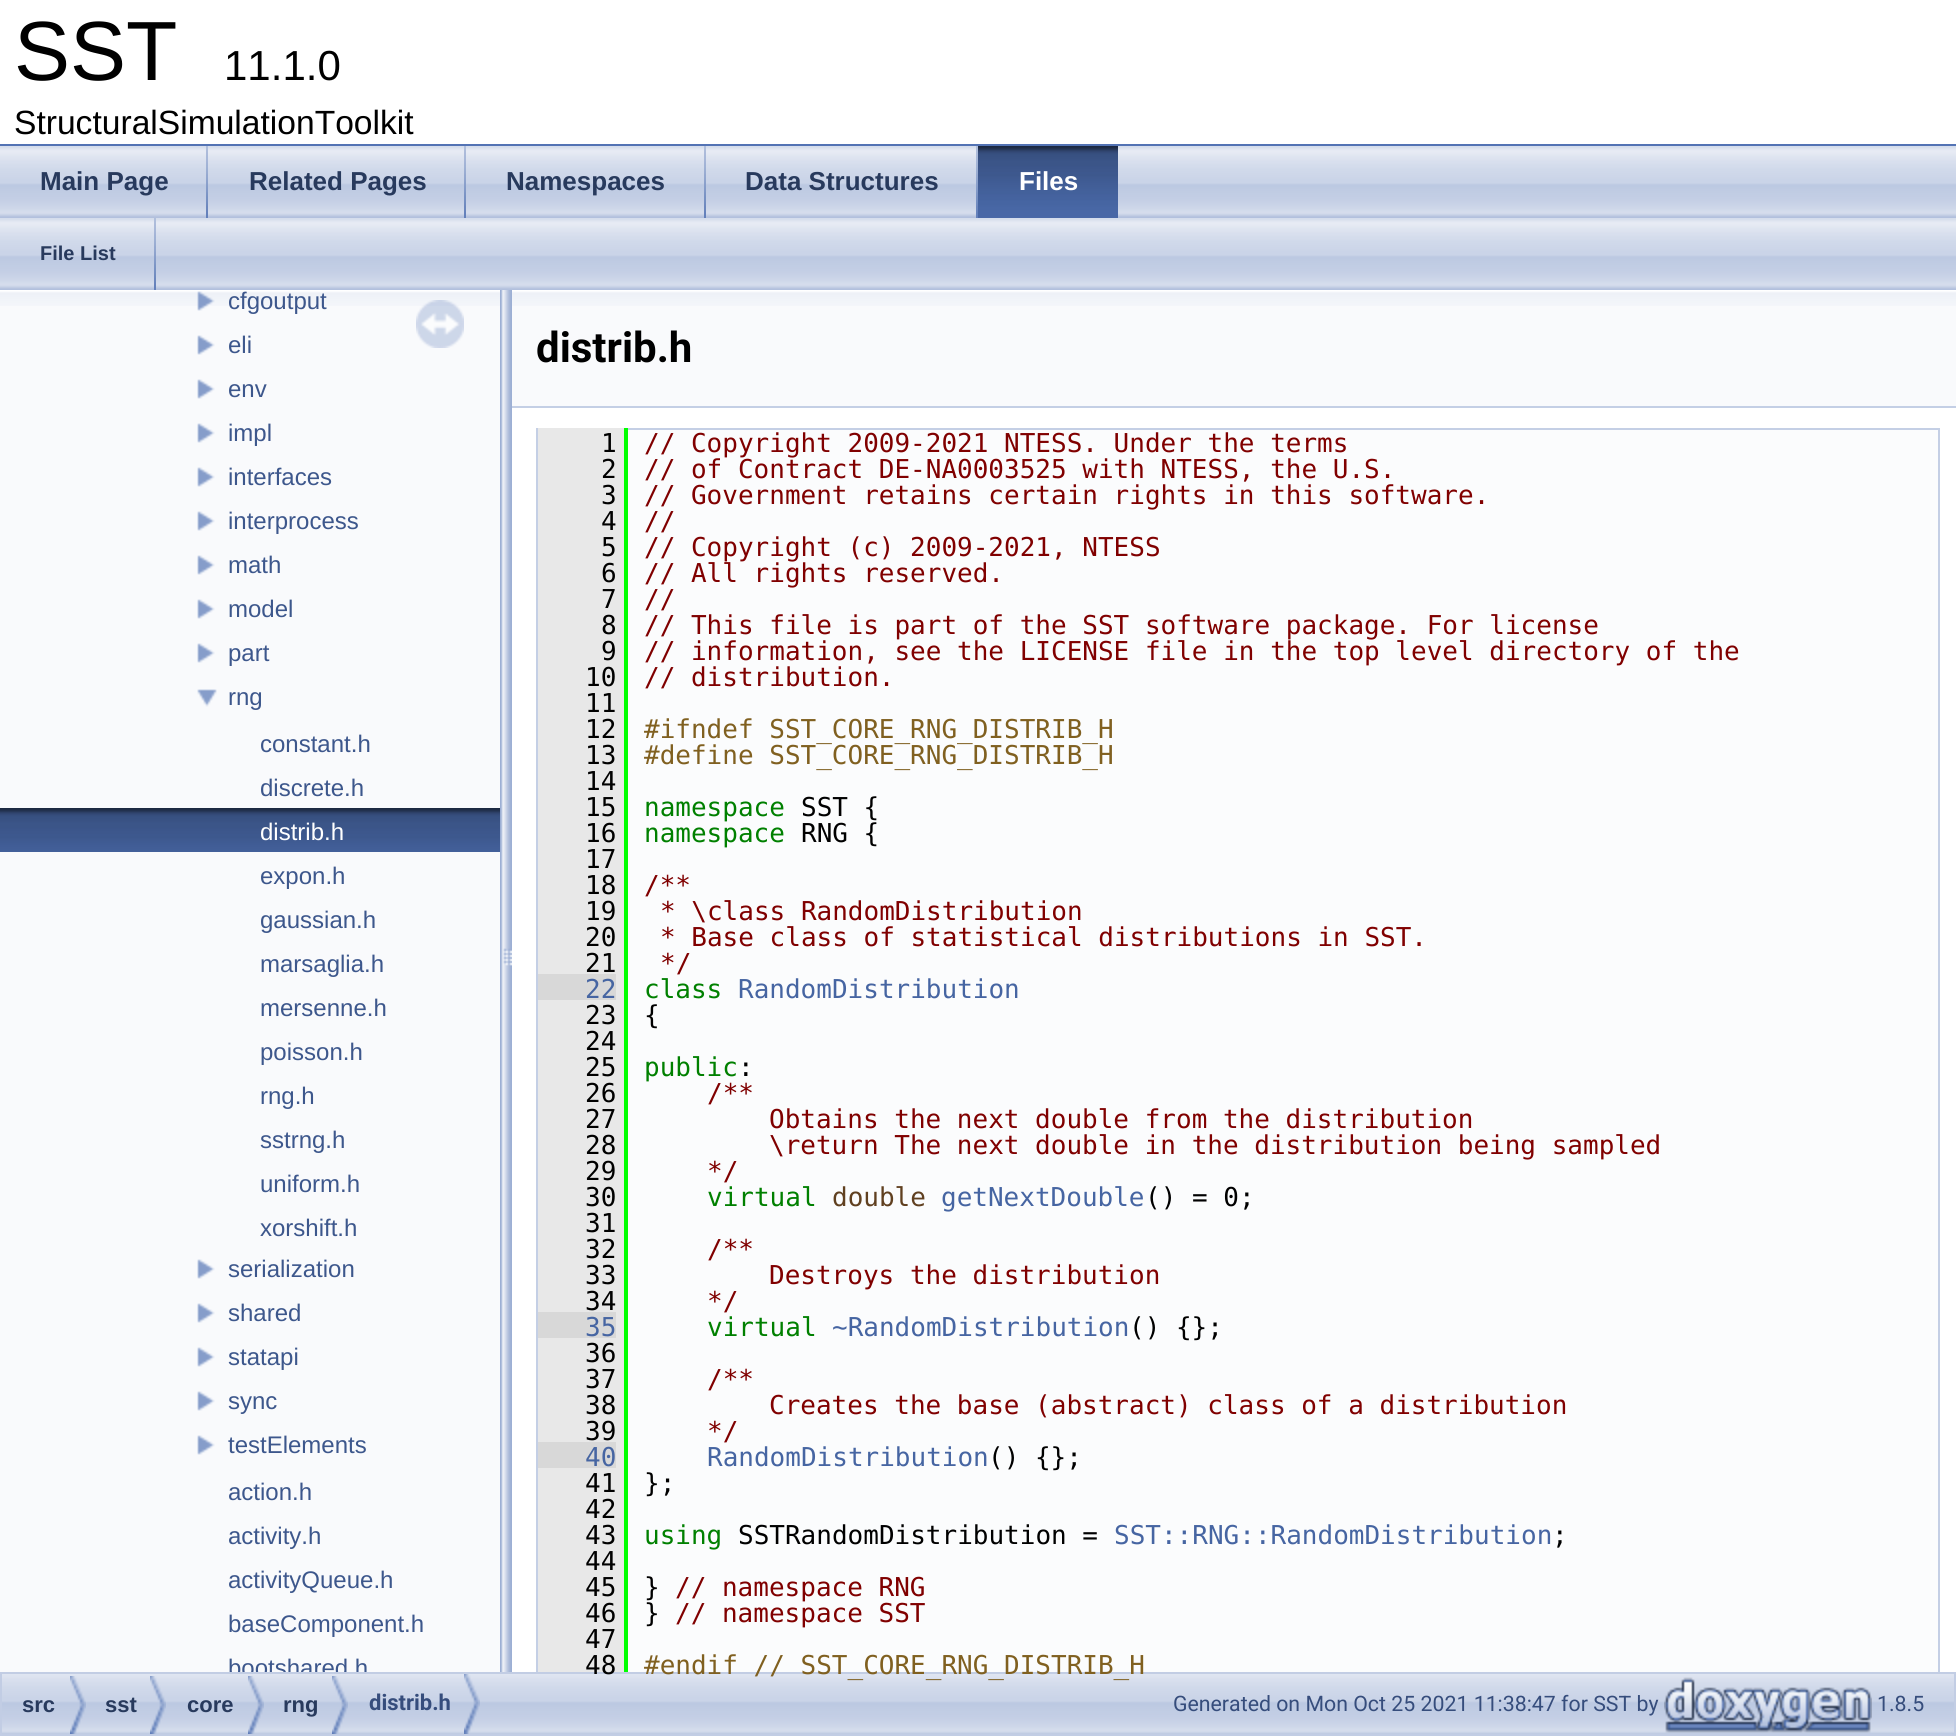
#include <cairo/cairo.h>
#include <math.h>
#include <stddef.h>


static void draw_image(cairo_t *cr, const char *path, double x, double y, double w, double h) {
  cairo_surface_t *image = cairo_image_surface_create_from_png(path);
  cairo_save(cr);
  cairo_set_source_surface(cr, image, x, y);
  cairo_rectangle(cr, x, y, w, h);
  cairo_fill(cr);
  cairo_restore(cr);
  cairo_surface_destroy(image);
}

static void draw(cairo_t *cr) {
  cairo_set_source_rgb(cr, 1, 1, 1);
  cairo_paint(cr);
  cairo_set_source_rgb(cr, 83 / 255.0, 115 / 255.0, 180 / 255.0);
  cairo_rectangle(cr, 0, 144, 1956, 2);
  cairo_fill(cr);
  draw_image(cr, "images/1.png", 0, 146, 1956, 72);
  draw_image(cr, "images/2.png", 206, 146, 2, 72);
  draw_image(cr, "images/2.png", 464, 146, 2, 72);
  draw_image(cr, "images/2.png", 704, 146, 2, 72);
  draw_image(cr, "images/2.png", 976, 146, 2, 72);
  draw_image(cr, "images/3.png", 978, 146, 140, 72);
  draw_image(cr, "images/1.png", 0, 218, 1956, 72);
  draw_image(cr, "images/2.png", 154, 218, 2, 72);
  cairo_set_source_rgb(cr, 249 / 255.0, 250 / 255.0, 252 / 255.0);
  cairo_rectangle(cr, 0, 306, 500, 1366);
  cairo_fill(cr);
  draw_image(cr, "images/4.png", 0, 290, 500, 16);
  draw_image(cr, "images/5.png", 197, 291, 18, 20);
  draw_image(cr, "images/6.png", 197, 335, 18, 20);
  draw_image(cr, "images/6.png", 197, 379, 18, 20);
  draw_image(cr, "images/6.png", 197, 423, 18, 20);
  draw_image(cr, "images/6.png", 197, 467, 18, 20);
  draw_image(cr, "images/6.png", 197, 511, 18, 20);
  draw_image(cr, "images/6.png", 197, 555, 18, 20);
  draw_image(cr, "images/6.png", 197, 599, 18, 20);
  draw_image(cr, "images/6.png", 197, 643, 18, 20);
  draw_image(cr, "images/7.png", 197, 689, 20, 18);
  draw_image(cr, "images/8.png", 0, 808, 500, 44);
  draw_image(cr, "images/6.png", 197, 1259, 18, 20);
  draw_image(cr, "images/6.png", 197, 1303, 18, 20);
  draw_image(cr, "images/6.png", 197, 1347, 18, 20);
  draw_image(cr, "images/6.png", 197, 1391, 18, 20);
  draw_image(cr, "images/6.png", 197, 1435, 18, 20);
  draw_image(cr, "images/9.png", 416, 300, 48, 48);
  draw_image(cr, "images/10.png", 500, 290, 12, 1382);
  cairo_rectangle(cr, 512, 306, 1444, 100);
  cairo_fill(cr);
  draw_image(cr, "images/11.png", 512, 290, 1444, 16);
  cairo_set_source_rgb(cr, 196 / 255.0, 207 / 255.0, 229 / 255.0);
  cairo_rectangle(cr, 512, 406, 1444, 2);
  cairo_fill(cr);
  cairo_set_source_rgb(cr, 251 / 255.0, 252 / 255.0, 253 / 255.0);
  cairo_rectangle(cr, 628, 430, 1310, 1242);
  cairo_fill(cr);
  cairo_rectangle(cr, 537, 429, 1402, 1250);
  cairo_set_source_rgb(cr, 196 / 255.0, 207 / 255.0, 229 / 255.0);
  cairo_stroke(cr);
  cairo_set_source_rgb(cr, 232 / 255.0, 232 / 255.0, 232 / 255.0);
  cairo_rectangle(cr, 538, 428, 86, 546);
  cairo_fill(cr);
  cairo_set_source_rgb(cr, 0, 1, 0);
  cairo_rectangle(cr, 624, 428, 4, 1244);
  cairo_fill(cr);
  cairo_set_source_rgb(cr, 232 / 255.0, 232 / 255.0, 232 / 255.0);
  cairo_rectangle(cr, 616, 974, 8, 26);
  cairo_fill(cr);
  cairo_set_source_rgb(cr, 216 / 255.0, 216 / 255.0, 216 / 255.0);
  cairo_rectangle(cr, 538, 974, 78, 26);
  cairo_fill(cr);
  cairo_set_source_rgb(cr, 232 / 255.0, 232 / 255.0, 232 / 255.0);
  cairo_rectangle(cr, 538, 1000, 86, 312);
  cairo_fill(cr);
  cairo_rectangle(cr, 616, 1312, 8, 26);
  cairo_fill(cr);
  cairo_set_source_rgb(cr, 216 / 255.0, 216 / 255.0, 216 / 255.0);
  cairo_rectangle(cr, 538, 1312, 78, 26);
  cairo_fill(cr);
  cairo_set_source_rgb(cr, 232 / 255.0, 232 / 255.0, 232 / 255.0);
  cairo_rectangle(cr, 538, 1338, 86, 104);
  cairo_fill(cr);
  cairo_rectangle(cr, 616, 1442, 8, 26);
  cairo_fill(cr);
  cairo_set_source_rgb(cr, 216 / 255.0, 216 / 255.0, 216 / 255.0);
  cairo_rectangle(cr, 538, 1442, 78, 26);
  cairo_fill(cr);
  cairo_set_source_rgb(cr, 232 / 255.0, 232 / 255.0, 232 / 255.0);
  cairo_rectangle(cr, 538, 1468, 86, 204);
  cairo_fill(cr);
  draw_image(cr, "images/12.png", 2, 1674, 1952, 60);
  cairo_rectangle(cr, 1, 1673, 1954, 62);
  cairo_set_source_rgb(cr, 194 / 255.0, 205 / 255.0, 228 / 255.0);
  cairo_stroke(cr);
  draw_image(cr, "images/13.png", 70, 1676, 16, 58);
  draw_image(cr, "images/13.png", 150, 1676, 16, 58);
  draw_image(cr, "images/13.png", 248, 1676, 16, 58);
  draw_image(cr, "images/13.png", 332, 1676, 16, 58);
  draw_image(cr, "images/14.png", 464, 1674, 16, 60);
  draw_image(cr, "images/15.png", 1664, 1677, 208, 56);
  cairo_select_font_face(cr, "Liberation Sans", CAIRO_FONT_SLANT_NORMAL, CAIRO_FONT_WEIGHT_NORMAL);
  cairo_set_font_size(cr, 84);
  cairo_set_source_rgb(cr, 0, 0, 0);
  cairo_move_to(cr, 14, 80);
  cairo_show_text(cr, "SST");
  cairo_set_font_size(cr, 42);
  cairo_move_to(cr, 224, 80);
  cairo_show_text(cr, "11.1.0");
  cairo_set_font_size(cr, 33.6);
  cairo_move_to(cr, 14, 134);
  cairo_show_text(cr, "StructuralSimulationToolkit");
  cairo_select_font_face(cr, "Liberation Sans", CAIRO_FONT_SLANT_NORMAL, CAIRO_FONT_WEIGHT_BOLD);
  cairo_set_font_size(cr, 26);
  cairo_set_source_rgb(cr, 40 / 255.0, 58 / 255.0, 93 / 255.0);
  cairo_move_to(cr, 40, 190);
  cairo_show_text(cr, "Main Page");
  cairo_move_to(cr, 249, 190);
  cairo_show_text(cr, "Related Pages");
  cairo_move_to(cr, 506, 190);
  cairo_show_text(cr, "Namespaces");
  cairo_move_to(cr, 745, 190);
  cairo_show_text(cr, "Data Structures");
  cairo_set_source_rgb(cr, 1, 1, 1);
  cairo_move_to(cr, 1019, 190);
  cairo_show_text(cr, "Files");
  cairo_set_font_size(cr, 20);
  cairo_set_source_rgb(cr, 40 / 255.0, 58 / 255.0, 93 / 255.0);
  cairo_move_to(cr, 40, 260);
  cairo_show_text(cr, "File List");
  cairo_select_font_face(cr, "Liberation Sans", CAIRO_FONT_SLANT_NORMAL, CAIRO_FONT_WEIGHT_NORMAL);
  cairo_set_font_size(cr, 24);
  cairo_set_source_rgb(cr, 61 / 255.0, 87 / 255.0, 140 / 255.0);
  cairo_move_to(cr, 228, 309);
  cairo_show_text(cr, "cfgoutput");
  cairo_move_to(cr, 228, 353);
  cairo_show_text(cr, "eli");
  cairo_move_to(cr, 228, 397);
  cairo_show_text(cr, "env");
  cairo_move_to(cr, 228, 441);
  cairo_show_text(cr, "impl");
  cairo_move_to(cr, 228, 485);
  cairo_show_text(cr, "interfaces");
  cairo_move_to(cr, 228, 529);
  cairo_show_text(cr, "interprocess");
  cairo_move_to(cr, 228, 573);
  cairo_show_text(cr, "math");
  cairo_move_to(cr, 228, 617);
  cairo_show_text(cr, "model");
  cairo_move_to(cr, 228, 661);
  cairo_show_text(cr, "part");
  cairo_move_to(cr, 228, 705);
  cairo_show_text(cr, "rng");
  cairo_move_to(cr, 260, 752);
  cairo_show_text(cr, "constant.h");
  cairo_move_to(cr, 260, 796);
  cairo_show_text(cr, "discrete.h");
  cairo_set_source_rgb(cr, 1, 1, 1);
  cairo_move_to(cr, 260, 840);
  cairo_show_text(cr, "distrib.h");
  cairo_set_source_rgb(cr, 61 / 255.0, 87 / 255.0, 140 / 255.0);
  cairo_move_to(cr, 260, 884);
  cairo_show_text(cr, "expon.h");
  cairo_move_to(cr, 260, 928);
  cairo_show_text(cr, "gaussian.h");
  cairo_move_to(cr, 260, 972);
  cairo_show_text(cr, "marsaglia.h");
  cairo_move_to(cr, 260, 1016);
  cairo_show_text(cr, "mersenne.h");
  cairo_move_to(cr, 260, 1060);
  cairo_show_text(cr, "poisson.h");
  cairo_move_to(cr, 260, 1104);
  cairo_show_text(cr, "rng.h");
  cairo_move_to(cr, 260, 1148);
  cairo_show_text(cr, "sstrng.h");
  cairo_move_to(cr, 260, 1192);
  cairo_show_text(cr, "uniform.h");
  cairo_move_to(cr, 260, 1236);
  cairo_show_text(cr, "xorshift.h");
  cairo_move_to(cr, 228, 1277);
  cairo_show_text(cr, "serialization");
  cairo_move_to(cr, 228, 1321);
  cairo_show_text(cr, "shared");
  cairo_move_to(cr, 228, 1365);
  cairo_show_text(cr, "statapi");
  cairo_move_to(cr, 228, 1409);
  cairo_show_text(cr, "sync");
  cairo_move_to(cr, 228, 1453);
  cairo_show_text(cr, "testElements");
  cairo_move_to(cr, 228, 1500);
  cairo_show_text(cr, "action.h");
  cairo_move_to(cr, 228, 1544);
  cairo_show_text(cr, "activity.h");
  cairo_move_to(cr, 228, 1588);
  cairo_show_text(cr, "activityQueue.h");
  cairo_move_to(cr, 228, 1632);
  cairo_show_text(cr, "baseComponent.h");
  cairo_save(cr);
  cairo_rectangle(cr, 0, 290, 500, 1382);
  cairo_clip(cr);
  cairo_move_to(cr, 228, 1676);
  cairo_show_text(cr, "bootshared.h");
  cairo_restore(cr);
  cairo_select_font_face(cr, "Roboto", CAIRO_FONT_SLANT_NORMAL, CAIRO_FONT_WEIGHT_BOLD);
  cairo_set_font_size(cr, 42);
  cairo_set_source_rgb(cr, 0, 0, 0);
  cairo_move_to(cr, 536, 362);
  cairo_show_text(cr, "distrib.h");
  cairo_select_font_face(cr, "DejaVu Sans Mono", CAIRO_FONT_SLANT_NORMAL, CAIRO_FONT_WEIGHT_NORMAL);
  cairo_set_font_size(cr, 26);
  cairo_move_to(cr, 601, 452);
  cairo_show_text(cr, "1");
  cairo_set_source_rgb(cr, 128 / 255.0, 0, 0);
  cairo_move_to(cr, 644, 452);
  cairo_show_text(cr, "// Copyright 2009-2021 NTESS. Under the terms");
  cairo_set_source_rgb(cr, 0, 0, 0);
  cairo_move_to(cr, 601, 478);
  cairo_show_text(cr, "2");
  cairo_set_source_rgb(cr, 128 / 255.0, 0, 0);
  cairo_move_to(cr, 644, 478);
  cairo_show_text(cr, "// of Contract DE-NA0003525 with NTESS, the U.S.");
  cairo_set_source_rgb(cr, 0, 0, 0);
  cairo_move_to(cr, 601, 504);
  cairo_show_text(cr, "3");
  cairo_set_source_rgb(cr, 128 / 255.0, 0, 0);
  cairo_move_to(cr, 644, 504);
  cairo_show_text(cr, "// Government retains certain rights in this software.");
  cairo_set_source_rgb(cr, 0, 0, 0);
  cairo_move_to(cr, 601, 530);
  cairo_show_text(cr, "4");
  cairo_set_source_rgb(cr, 128 / 255.0, 0, 0);
  cairo_move_to(cr, 644, 530);
  cairo_show_text(cr, "//");
  cairo_set_source_rgb(cr, 0, 0, 0);
  cairo_move_to(cr, 601, 556);
  cairo_show_text(cr, "5");
  cairo_set_source_rgb(cr, 128 / 255.0, 0, 0);
  cairo_move_to(cr, 644, 556);
  cairo_show_text(cr, "// Copyright (c) 2009-2021, NTESS");
  cairo_set_source_rgb(cr, 0, 0, 0);
  cairo_move_to(cr, 601, 582);
  cairo_show_text(cr, "6");
  cairo_set_source_rgb(cr, 128 / 255.0, 0, 0);
  cairo_move_to(cr, 644, 582);
  cairo_show_text(cr, "// All rights reserved.");
  cairo_set_source_rgb(cr, 0, 0, 0);
  cairo_move_to(cr, 601, 608);
  cairo_show_text(cr, "7");
  cairo_set_source_rgb(cr, 128 / 255.0, 0, 0);
  cairo_move_to(cr, 644, 608);
  cairo_show_text(cr, "//");
  cairo_set_source_rgb(cr, 0, 0, 0);
  cairo_move_to(cr, 601, 634);
  cairo_show_text(cr, "8");
  cairo_set_source_rgb(cr, 128 / 255.0, 0, 0);
  cairo_move_to(cr, 644, 634);
  cairo_show_text(cr, "// This file is part of the SST software package. For license");
  cairo_set_source_rgb(cr, 0, 0, 0);
  cairo_move_to(cr, 601, 660);
  cairo_show_text(cr, "9");
  cairo_set_source_rgb(cr, 128 / 255.0, 0, 0);
  cairo_move_to(cr, 644, 660);
  cairo_show_text(cr, "// information, see the LICENSE file in the top level directory of the");
  cairo_set_source_rgb(cr, 0, 0, 0);
  cairo_move_to(cr, 585, 686);
  cairo_show_text(cr, "10");
  cairo_set_source_rgb(cr, 128 / 255.0, 0, 0);
  cairo_move_to(cr, 644, 686);
  cairo_show_text(cr, "// distribution.");
  cairo_set_source_rgb(cr, 0, 0, 0);
  cairo_move_to(cr, 585, 712);
  cairo_show_text(cr, "11");
  cairo_move_to(cr, 585, 738);
  cairo_show_text(cr, "12");
  cairo_set_source_rgb(cr, 128 / 255.0, 96 / 255.0, 32 / 255.0);
  cairo_move_to(cr, 644, 738);
  cairo_show_text(cr, "#ifndef SST_CORE_RNG_DISTRIB_H");
  cairo_set_source_rgb(cr, 0, 0, 0);
  cairo_move_to(cr, 585, 764);
  cairo_show_text(cr, "13");
  cairo_set_source_rgb(cr, 128 / 255.0, 96 / 255.0, 32 / 255.0);
  cairo_move_to(cr, 644, 764);
  cairo_show_text(cr, "#define SST_CORE_RNG_DISTRIB_H");
  cairo_set_source_rgb(cr, 0, 0, 0);
  cairo_move_to(cr, 585, 790);
  cairo_show_text(cr, "14");
  cairo_move_to(cr, 585, 816);
  cairo_show_text(cr, "15");
  cairo_set_source_rgb(cr, 0, 128 / 255.0, 0);
  cairo_move_to(cr, 644, 816);
  cairo_show_text(cr, "namespace");
  cairo_set_source_rgb(cr, 0, 0, 0);
  cairo_move_to(cr, 801, 816);
  cairo_show_text(cr, "SST {");
  cairo_move_to(cr, 585, 842);
  cairo_show_text(cr, "16");
  cairo_set_source_rgb(cr, 0, 128 / 255.0, 0);
  cairo_move_to(cr, 644, 842);
  cairo_show_text(cr, "namespace");
  cairo_set_source_rgb(cr, 0, 0, 0);
  cairo_move_to(cr, 801, 842);
  cairo_show_text(cr, "RNG {");
  cairo_move_to(cr, 585, 868);
  cairo_show_text(cr, "17");
  cairo_move_to(cr, 585, 894);
  cairo_show_text(cr, "18");
  cairo_set_source_rgb(cr, 128 / 255.0, 0, 0);
  cairo_move_to(cr, 644, 894);
  cairo_show_text(cr, "/**");
  cairo_set_source_rgb(cr, 0, 0, 0);
  cairo_move_to(cr, 585, 920);
  cairo_show_text(cr, "19");
  cairo_set_source_rgb(cr, 128 / 255.0, 0, 0);
  cairo_move_to(cr, 660, 920);
  cairo_show_text(cr, "* \\class RandomDistribution");
  cairo_set_source_rgb(cr, 0, 0, 0);
  cairo_move_to(cr, 585, 946);
  cairo_show_text(cr, "20");
  cairo_set_source_rgb(cr, 128 / 255.0, 0, 0);
  cairo_move_to(cr, 660, 946);
  cairo_show_text(cr, "* Base class of statistical distributions in SST.");
  cairo_set_source_rgb(cr, 0, 0, 0);
  cairo_move_to(cr, 585, 972);
  cairo_show_text(cr, "21");
  cairo_set_source_rgb(cr, 128 / 255.0, 0, 0);
  cairo_move_to(cr, 660, 972);
  cairo_show_text(cr, "*/");
  cairo_set_source_rgb(cr, 70 / 255.0, 101 / 255.0, 162 / 255.0);
  cairo_move_to(cr, 585, 998);
  cairo_show_text(cr, "22");
  cairo_set_source_rgb(cr, 0, 128 / 255.0, 0);
  cairo_move_to(cr, 644, 998);
  cairo_show_text(cr, "class");
  cairo_set_source_rgb(cr, 70 / 255.0, 101 / 255.0, 162 / 255.0);
  cairo_move_to(cr, 738, 998);
  cairo_show_text(cr, "RandomDistribution");
  cairo_set_source_rgb(cr, 0, 0, 0);
  cairo_move_to(cr, 585, 1024);
  cairo_show_text(cr, "23");
  cairo_move_to(cr, 644, 1024);
  cairo_show_text(cr, "{");
  cairo_move_to(cr, 585, 1050);
  cairo_show_text(cr, "24");
  cairo_move_to(cr, 585, 1076);
  cairo_show_text(cr, "25");
  cairo_set_source_rgb(cr, 0, 128 / 255.0, 0);
  cairo_move_to(cr, 644, 1076);
  cairo_show_text(cr, "public");
  cairo_set_source_rgb(cr, 0, 0, 0);
  cairo_move_to(cr, 738, 1076);
  cairo_show_text(cr, ":");
  cairo_move_to(cr, 585, 1102);
  cairo_show_text(cr, "26");
  cairo_set_source_rgb(cr, 128 / 255.0, 0, 0);
  cairo_move_to(cr, 707, 1102);
  cairo_show_text(cr, "/**");
  cairo_set_source_rgb(cr, 0, 0, 0);
  cairo_move_to(cr, 585, 1128);
  cairo_show_text(cr, "27");
  cairo_set_source_rgb(cr, 128 / 255.0, 0, 0);
  cairo_move_to(cr, 769, 1128);
  cairo_show_text(cr, "Obtains the next double from the distribution");
  cairo_set_source_rgb(cr, 0, 0, 0);
  cairo_move_to(cr, 585, 1154);
  cairo_show_text(cr, "28");
  cairo_set_source_rgb(cr, 128 / 255.0, 0, 0);
  cairo_move_to(cr, 769, 1154);
  cairo_show_text(cr, "\\return The next double in the distribution being sampled");
  cairo_set_source_rgb(cr, 0, 0, 0);
  cairo_move_to(cr, 585, 1180);
  cairo_show_text(cr, "29");
  cairo_set_source_rgb(cr, 128 / 255.0, 0, 0);
  cairo_move_to(cr, 707, 1180);
  cairo_show_text(cr, "*/");
  cairo_set_source_rgb(cr, 0, 0, 0);
  cairo_move_to(cr, 585, 1206);
  cairo_show_text(cr, "30");
  cairo_set_source_rgb(cr, 0, 128 / 255.0, 0);
  cairo_move_to(cr, 707, 1206);
  cairo_show_text(cr, "virtual");
  cairo_set_source_rgb(cr, 96 / 255.0, 64 / 255.0, 32 / 255.0);
  cairo_move_to(cr, 832, 1206);
  cairo_show_text(cr, "double");
  cairo_set_source_rgb(cr, 70 / 255.0, 101 / 255.0, 162 / 255.0);
  cairo_move_to(cr, 941, 1206);
  cairo_show_text(cr, "getNextDouble");
  cairo_set_source_rgb(cr, 0, 0, 0);
  cairo_move_to(cr, 1145, 1206);
  cairo_show_text(cr, "() = 0;");
  cairo_move_to(cr, 585, 1232);
  cairo_show_text(cr, "31");
  cairo_move_to(cr, 585, 1258);
  cairo_show_text(cr, "32");
  cairo_set_source_rgb(cr, 128 / 255.0, 0, 0);
  cairo_move_to(cr, 707, 1258);
  cairo_show_text(cr, "/**");
  cairo_set_source_rgb(cr, 0, 0, 0);
  cairo_move_to(cr, 585, 1284);
  cairo_show_text(cr, "33");
  cairo_set_source_rgb(cr, 128 / 255.0, 0, 0);
  cairo_move_to(cr, 769, 1284);
  cairo_show_text(cr, "Destroys the distribution");
  cairo_set_source_rgb(cr, 0, 0, 0);
  cairo_move_to(cr, 585, 1310);
  cairo_show_text(cr, "34");
  cairo_set_source_rgb(cr, 128 / 255.0, 0, 0);
  cairo_move_to(cr, 707, 1310);
  cairo_show_text(cr, "*/");
  cairo_set_source_rgb(cr, 70 / 255.0, 101 / 255.0, 162 / 255.0);
  cairo_move_to(cr, 585, 1336);
  cairo_show_text(cr, "35");
  cairo_set_source_rgb(cr, 0, 128 / 255.0, 0);
  cairo_move_to(cr, 707, 1336);
  cairo_show_text(cr, "virtual");
  cairo_set_source_rgb(cr, 70 / 255.0, 101 / 255.0, 162 / 255.0);
  cairo_move_to(cr, 832, 1336);
  cairo_show_text(cr, "~RandomDistribution");
  cairo_set_source_rgb(cr, 0, 0, 0);
  cairo_move_to(cr, 1129, 1336);
  cairo_show_text(cr, "() {};");
  cairo_move_to(cr, 585, 1362);
  cairo_show_text(cr, "36");
  cairo_move_to(cr, 585, 1388);
  cairo_show_text(cr, "37");
  cairo_set_source_rgb(cr, 128 / 255.0, 0, 0);
  cairo_move_to(cr, 707, 1388);
  cairo_show_text(cr, "/**");
  cairo_set_source_rgb(cr, 0, 0, 0);
  cairo_move_to(cr, 585, 1414);
  cairo_show_text(cr, "38");
  cairo_set_source_rgb(cr, 128 / 255.0, 0, 0);
  cairo_move_to(cr, 769, 1414);
  cairo_show_text(cr, "Creates the base (abstract) class of a distribution");
  cairo_set_source_rgb(cr, 0, 0, 0);
  cairo_move_to(cr, 585, 1440);
  cairo_show_text(cr, "39");
  cairo_set_source_rgb(cr, 128 / 255.0, 0, 0);
  cairo_move_to(cr, 707, 1440);
  cairo_show_text(cr, "*/");
  cairo_set_source_rgb(cr, 70 / 255.0, 101 / 255.0, 162 / 255.0);
  cairo_move_to(cr, 585, 1466);
  cairo_show_text(cr, "40");
  cairo_move_to(cr, 707, 1466);
  cairo_show_text(cr, "RandomDistribution");
  cairo_set_source_rgb(cr, 0, 0, 0);
  cairo_move_to(cr, 988, 1466);
  cairo_show_text(cr, "() {};");
  cairo_move_to(cr, 585, 1492);
  cairo_show_text(cr, "41");
  cairo_move_to(cr, 644, 1492);
  cairo_show_text(cr, "};");
  cairo_move_to(cr, 585, 1518);
  cairo_show_text(cr, "42");
  cairo_move_to(cr, 585, 1544);
  cairo_show_text(cr, "43");
  cairo_set_source_rgb(cr, 0, 128 / 255.0, 0);
  cairo_move_to(cr, 644, 1544);
  cairo_show_text(cr, "using");
  cairo_set_source_rgb(cr, 0, 0, 0);
  cairo_move_to(cr, 738, 1544);
  cairo_show_text(cr, "SSTRandomDistribution =");
  cairo_set_source_rgb(cr, 70 / 255.0, 101 / 255.0, 162 / 255.0);
  cairo_move_to(cr, 1114, 1544);
  cairo_show_text(cr, "SST::RNG::RandomDistribution");
  cairo_set_source_rgb(cr, 0, 0, 0);
  cairo_move_to(cr, 1552, 1544);
  cairo_show_text(cr, ";");
  cairo_move_to(cr, 585, 1570);
  cairo_show_text(cr, "44");
  cairo_move_to(cr, 585, 1596);
  cairo_show_text(cr, "45");
  cairo_move_to(cr, 644, 1596);
  cairo_show_text(cr, "}");
  cairo_set_source_rgb(cr, 128 / 255.0, 0, 0);
  cairo_move_to(cr, 675, 1596);
  cairo_show_text(cr, "// namespace RNG");
  cairo_set_source_rgb(cr, 0, 0, 0);
  cairo_move_to(cr, 585, 1622);
  cairo_show_text(cr, "46");
  cairo_move_to(cr, 644, 1622);
  cairo_show_text(cr, "}");
  cairo_set_source_rgb(cr, 128 / 255.0, 0, 0);
  cairo_move_to(cr, 675, 1622);
  cairo_show_text(cr, "// namespace SST");
  cairo_set_source_rgb(cr, 0, 0, 0);
  cairo_move_to(cr, 585, 1648);
  cairo_show_text(cr, "47");
  cairo_move_to(cr, 585, 1674);
  cairo_show_text(cr, "48");
  cairo_set_source_rgb(cr, 128 / 255.0, 96 / 255.0, 32 / 255.0);
  cairo_move_to(cr, 644, 1674);
  cairo_show_text(cr, "#endif // SST_CORE_RNG_DISTRIB_H");
  cairo_select_font_face(cr, "Liberation Sans", CAIRO_FONT_SLANT_NORMAL, CAIRO_FONT_WEIGHT_BOLD);
  cairo_set_font_size(cr, 22);
  cairo_set_source_rgb(cr, 40 / 255.0, 58 / 255.0, 93 / 255.0);
  cairo_move_to(cr, 22, 1712);
  cairo_show_text(cr, "src");
  cairo_move_to(cr, 105, 1712);
  cairo_show_text(cr, "sst");
  cairo_move_to(cr, 187, 1712);
  cairo_show_text(cr, "core");
  cairo_move_to(cr, 283, 1712);
  cairo_show_text(cr, "rng");
  cairo_select_font_face(cr, "Roboto", CAIRO_FONT_SLANT_NORMAL, CAIRO_FONT_WEIGHT_BOLD);
  cairo_set_source_rgb(cr, 54 / 255.0, 77 / 255.0, 124 / 255.0);
  cairo_move_to(cr, 369, 1710);
  cairo_show_text(cr, "distrib.h");
  cairo_select_font_face(cr, "Roboto", CAIRO_FONT_SLANT_NORMAL, CAIRO_FONT_WEIGHT_NORMAL);
  cairo_set_font_size(cr, 21.3);
  cairo_move_to(cr, 1173, 1711);
  cairo_show_text(cr, "Generated on Mon Oct 25 2021 11:38:47 for SST by");
  cairo_move_to(cr, 1877, 1711);
  cairo_show_text(cr, "1.8.5");
}

int main(void) {
  cairo_surface_t *surface = cairo_image_surface_create(CAIRO_FORMAT_RGB24, 1956, 1736);
  cairo_t *cr = cairo_create(surface);
  cairo_font_options_t *options = cairo_font_options_create();
  cairo_font_options_set_hint_metrics(options, CAIRO_HINT_METRICS_OFF);
  cairo_font_options_set_hint_style(options, CAIRO_HINT_STYLE_NONE);
  cairo_set_font_options(cr, options);
  cairo_set_miter_limit(cr, 4);
  draw(cr);
  cairo_surface_write_to_png(surface, "out.png");
  cairo_font_options_destroy(options);
  cairo_destroy(cr);
  cairo_surface_destroy(surface);
  return 0;
}
